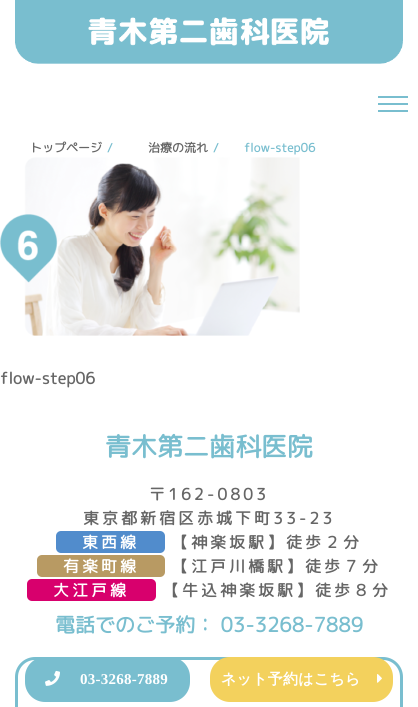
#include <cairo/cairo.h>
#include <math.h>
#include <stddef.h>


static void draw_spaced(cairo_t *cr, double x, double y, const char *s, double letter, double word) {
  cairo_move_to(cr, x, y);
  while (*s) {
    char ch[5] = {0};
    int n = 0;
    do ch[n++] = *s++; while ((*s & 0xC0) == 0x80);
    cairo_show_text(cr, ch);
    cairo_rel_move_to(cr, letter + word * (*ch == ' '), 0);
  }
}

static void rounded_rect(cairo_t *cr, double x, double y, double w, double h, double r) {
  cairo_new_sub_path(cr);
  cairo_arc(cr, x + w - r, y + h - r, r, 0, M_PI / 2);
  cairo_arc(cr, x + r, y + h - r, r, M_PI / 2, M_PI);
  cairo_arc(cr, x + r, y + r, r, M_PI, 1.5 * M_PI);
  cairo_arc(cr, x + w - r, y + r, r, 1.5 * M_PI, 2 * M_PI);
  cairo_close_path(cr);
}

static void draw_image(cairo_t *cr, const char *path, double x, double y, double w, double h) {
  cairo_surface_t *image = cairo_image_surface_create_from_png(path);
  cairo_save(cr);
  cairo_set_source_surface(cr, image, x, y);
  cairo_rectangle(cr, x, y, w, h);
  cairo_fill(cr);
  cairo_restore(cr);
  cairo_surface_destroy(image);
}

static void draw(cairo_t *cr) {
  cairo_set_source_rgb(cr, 1, 1, 1);
  cairo_paint(cr);
  draw_image(cr, "images/1.png", 15, 0, 388, 64);
  cairo_set_source_rgb(cr, 121 / 255.0, 190 / 255.0, 207 / 255.0);
  cairo_rectangle(cr, 378, 96, 30, 2);
  cairo_fill(cr);
  cairo_rectangle(cr, 378, 103, 30, 2);
  cairo_fill(cr);
  cairo_rectangle(cr, 378, 110, 30, 2);
  cairo_fill(cr);
  draw_image(cr, "images/2.png", 0, 157, 300, 179);
  cairo_set_source_rgb(cr, 81 / 255.0, 140 / 255.0, 204 / 255.0);
  rounded_rect(cr, 56, 531, 109, 22, 5);
  cairo_fill(cr);
  cairo_set_source_rgb(cr, 184 / 255.0, 154 / 255.0, 99 / 255.0);
  rounded_rect(cr, 37, 555, 128, 22, 5);
  cairo_fill(cr);
  cairo_set_source_rgb(cr, 216 / 255.0, 0, 109 / 255.0);
  rounded_rect(cr, 27, 579, 129, 22, 5);
  cairo_fill(cr);
  rounded_rect(cr, 16.5, 658.5, 385, 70, 18.5);
  cairo_set_source_rgb(cr, 121 / 255.0, 190 / 255.0, 207 / 255.0);
  cairo_set_line_width(cr, 3);
  cairo_stroke(cr);
  rounded_rect(cr, 25, 657, 165, 45, 20);
  cairo_fill(cr);
  draw_image(cr, "images/3.png", 45, 670, 15, 16);
  cairo_set_source_rgb(cr, 243 / 255.0, 209 / 255.0, 93 / 255.0);
  rounded_rect(cr, 210, 657, 183, 45, 20);
  cairo_fill(cr);
  draw_image(cr, "images/4.png", 377, 674, 5, 9);
  cairo_select_font_face(cr, "Rounded Mplus 1c", CAIRO_FONT_SLANT_NORMAL, CAIRO_FONT_WEIGHT_BOLD);
  cairo_set_font_size(cr, 12);
  cairo_set_source_rgb(cr, 102 / 255.0, 102 / 255.0, 102 / 255.0);
  cairo_move_to(cr, 30, 152);
  cairo_show_text(cr, "トップページ");
  cairo_set_source_rgb(cr, 121 / 255.0, 190 / 255.0, 207 / 255.0);
  cairo_move_to(cr, 107, 152);
  cairo_show_text(cr, "/");
  cairo_set_source_rgb(cr, 102 / 255.0, 102 / 255.0, 102 / 255.0);
  cairo_move_to(cr, 148, 152);
  cairo_show_text(cr, "治療の流れ");
  cairo_set_source_rgb(cr, 121 / 255.0, 190 / 255.0, 207 / 255.0);
  cairo_move_to(cr, 213, 152);
  cairo_show_text(cr, "/");
  cairo_move_to(cr, 244, 152);
  cairo_show_text(cr, "flow-step06");
  cairo_set_font_size(cr, 16);
  cairo_set_source_rgb(cr, 102 / 255.0, 102 / 255.0, 102 / 255.0);
  cairo_move_to(cr, 0, 384);
  cairo_show_text(cr, "flow-step06");
  cairo_set_font_size(cr, 26);
  cairo_set_source_rgb(cr, 121 / 255.0, 190 / 255.0, 207 / 255.0);
  cairo_move_to(cr, 105, 456);
  cairo_show_text(cr, "青木第二歯科医院");
  cairo_set_font_size(cr, 16);
  cairo_set_source_rgb(cr, 102 / 255.0, 102 / 255.0, 102 / 255.0);
  draw_spaced(cr, 149, 500, "〒162-0803", 3, 0);
  draw_spaced(cr, 83, 524, "東京都新宿区赤城下町33-23", 3, 0);
  cairo_set_source_rgb(cr, 1, 1, 1);
  draw_spaced(cr, 82, 548, "東西線", 3, 0);
  cairo_set_source_rgb(cr, 102 / 255.0, 102 / 255.0, 102 / 255.0);
  draw_spaced(cr, 172, 548, "【神楽坂駅】徒歩２分", 3, 0);
  cairo_set_source_rgb(cr, 1, 1, 1);
  draw_spaced(cr, 63, 572, "有楽町線", 3, 0);
  cairo_set_source_rgb(cr, 102 / 255.0, 102 / 255.0, 102 / 255.0);
  draw_spaced(cr, 172, 572, "【江戸川橋駅】徒歩７分", 3, 0);
  cairo_set_source_rgb(cr, 1, 1, 1);
  draw_spaced(cr, 53, 596, "大江戸線", 3, 0);
  cairo_set_source_rgb(cr, 102 / 255.0, 102 / 255.0, 102 / 255.0);
  draw_spaced(cr, 163, 596, "【牛込神楽坂駅】徒歩８分", 3, 0);
  cairo_set_font_size(cr, 20);
  cairo_set_source_rgb(cr, 121 / 255.0, 190 / 255.0, 207 / 255.0);
  cairo_move_to(cr, 55, 632);
  cairo_show_text(cr, "電話でのご予約： 03-3268-7889");
  cairo_select_font_face(cr, "Liberation Serif", CAIRO_FONT_SLANT_NORMAL, CAIRO_FONT_WEIGHT_BOLD);
  cairo_set_font_size(cr, 15);
  cairo_set_source_rgb(cr, 1, 1, 1);
  draw_spaced(cr, 80, 684, "03-3268-7889", 0.25, 0);
  cairo_select_font_face(cr, "WenQuanYi Zen Hei", CAIRO_FONT_SLANT_NORMAL, CAIRO_FONT_WEIGHT_BOLD);
  draw_spaced(cr, 221, 684, "ネット予約はこちら", 0.25, 0);
}

int main(void) {
  cairo_surface_t *surface = cairo_image_surface_create(CAIRO_FORMAT_RGB24, 418, 707);
  cairo_t *cr = cairo_create(surface);
  cairo_font_options_t *options = cairo_font_options_create();
  cairo_font_options_set_hint_metrics(options, CAIRO_HINT_METRICS_OFF);
  cairo_font_options_set_hint_style(options, CAIRO_HINT_STYLE_NONE);
  cairo_set_font_options(cr, options);
  cairo_set_miter_limit(cr, 4);
  draw(cr);
  cairo_surface_write_to_png(surface, "out.png");
  cairo_font_options_destroy(options);
  cairo_destroy(cr);
  cairo_surface_destroy(surface);
  return 0;
}
